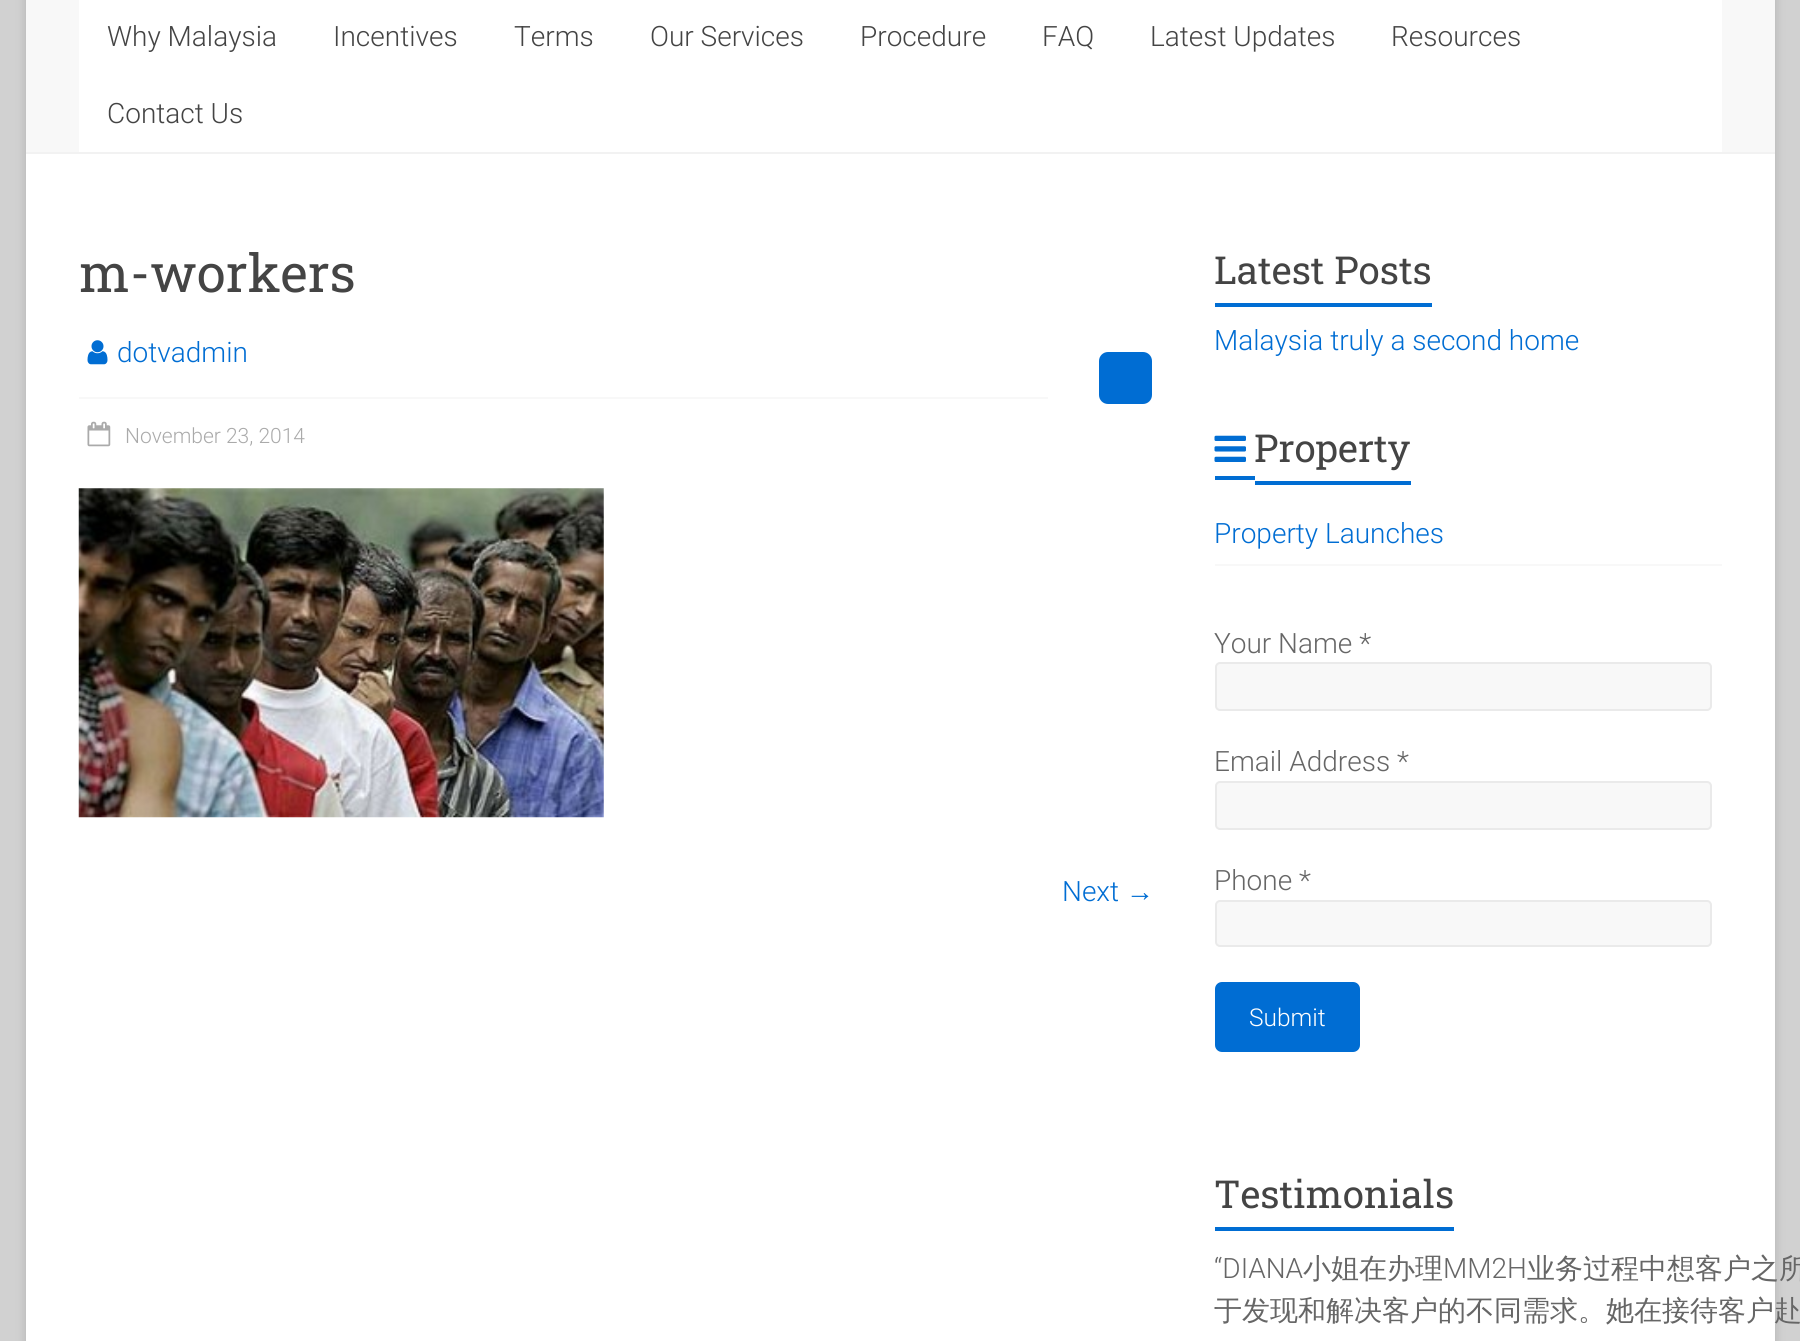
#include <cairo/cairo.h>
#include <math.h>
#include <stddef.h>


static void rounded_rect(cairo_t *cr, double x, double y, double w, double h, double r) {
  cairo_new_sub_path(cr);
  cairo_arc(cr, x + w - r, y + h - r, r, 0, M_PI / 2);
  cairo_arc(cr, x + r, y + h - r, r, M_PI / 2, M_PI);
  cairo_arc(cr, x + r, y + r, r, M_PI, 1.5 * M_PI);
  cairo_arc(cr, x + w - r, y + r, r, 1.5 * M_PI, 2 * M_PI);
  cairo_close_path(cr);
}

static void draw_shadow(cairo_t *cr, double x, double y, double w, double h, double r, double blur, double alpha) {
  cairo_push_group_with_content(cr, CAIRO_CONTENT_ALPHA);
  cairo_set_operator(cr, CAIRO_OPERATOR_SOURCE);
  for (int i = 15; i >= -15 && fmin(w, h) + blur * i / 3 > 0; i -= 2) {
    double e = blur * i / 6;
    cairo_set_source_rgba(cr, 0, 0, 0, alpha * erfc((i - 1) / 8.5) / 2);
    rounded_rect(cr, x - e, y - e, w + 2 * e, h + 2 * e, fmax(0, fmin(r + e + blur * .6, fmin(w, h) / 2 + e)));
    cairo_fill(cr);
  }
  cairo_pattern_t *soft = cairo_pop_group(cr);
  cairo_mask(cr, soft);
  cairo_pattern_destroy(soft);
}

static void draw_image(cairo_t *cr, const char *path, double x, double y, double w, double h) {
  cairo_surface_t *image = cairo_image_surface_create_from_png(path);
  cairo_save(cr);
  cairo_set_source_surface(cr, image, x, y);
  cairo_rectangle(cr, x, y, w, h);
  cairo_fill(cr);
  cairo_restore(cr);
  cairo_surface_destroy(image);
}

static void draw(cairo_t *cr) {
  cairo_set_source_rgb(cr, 209 / 255.0, 209 / 255.0, 209 / 255.0);
  cairo_paint(cr);
  cairo_set_source_rgb(cr, 100 / 255.0, 100 / 255.0, 100 / 255.0);
  draw_shadow(cr, 26, -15, 1749, 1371, 0, 5, 0.3);
  cairo_set_source_rgb(cr, 1, 1, 1);
  cairo_rectangle(cr, 26, 154, 1749, 1187);
  cairo_fill(cr);
  cairo_set_source_rgb(cr, 248 / 255.0, 248 / 255.0, 248 / 255.0);
  cairo_rectangle(cr, 26, 0, 1749, 152);
  cairo_fill(cr);
  cairo_set_source_rgb(cr, 242 / 255.0, 242 / 255.0, 242 / 255.0);
  cairo_rectangle(cr, 26, 152, 1749, 2);
  cairo_fill(cr);
  cairo_set_source_rgb(cr, 1, 1, 1);
  cairo_rectangle(cr, 79, 0, 1643, 152);
  cairo_fill(cr);
  draw_image(cr, "images/1.png", 87, 340, 21, 25);
  cairo_set_source_rgb(cr, 248 / 255.0, 248 / 255.0, 248 / 255.0);
  cairo_rectangle(cr, 79, 397, 969, 2);
  cairo_fill(cr);
  cairo_set_source_rgb(cr, 0, 109 / 255.0, 211 / 255.0);
  rounded_rect(cr, 1099, 352, 53, 52, 9);
  cairo_fill(cr);
  draw_image(cr, "images/2.png", 87, 421, 24, 26);
  draw_image(cr, "images/3.png", 78, 488, 526, 330);
  cairo_rectangle(cr, 1215, 303, 217, 4);
  cairo_fill(cr);
  draw_image(cr, "images/4.png", 1214, 435, 32, 27);
  cairo_rectangle(cr, 1215, 476, 40, 4);
  cairo_fill(cr);
  cairo_rectangle(cr, 1255, 481, 156, 4);
  cairo_fill(cr);
  cairo_set_source_rgb(cr, 248 / 255.0, 248 / 255.0, 248 / 255.0);
  cairo_rectangle(cr, 1215, 564, 507, 2);
  cairo_fill(cr);
  rounded_rect(cr, 1216, 663, 495, 47, 4);
  cairo_fill_preserve(cr);
  cairo_set_source_rgb(cr, 234 / 255.0, 234 / 255.0, 234 / 255.0);
  cairo_stroke(cr);
  cairo_set_source_rgb(cr, 248 / 255.0, 248 / 255.0, 248 / 255.0);
  rounded_rect(cr, 1216, 782, 495, 47, 4);
  cairo_fill_preserve(cr);
  cairo_set_source_rgb(cr, 234 / 255.0, 234 / 255.0, 234 / 255.0);
  cairo_stroke(cr);
  cairo_set_source_rgb(cr, 248 / 255.0, 248 / 255.0, 248 / 255.0);
  rounded_rect(cr, 1216, 901, 495, 45, 4);
  cairo_fill_preserve(cr);
  cairo_set_source_rgb(cr, 234 / 255.0, 234 / 255.0, 234 / 255.0);
  cairo_stroke(cr);
  cairo_set_source_rgb(cr, 0, 109 / 255.0, 211 / 255.0);
  rounded_rect(cr, 1215, 982, 145, 70, 7);
  cairo_fill(cr);
  cairo_rectangle(cr, 1215, 1227, 239, 4);
  cairo_fill(cr);
  cairo_select_font_face(cr, "Roboto Light", CAIRO_FONT_SLANT_NORMAL, CAIRO_FONT_WEIGHT_NORMAL);
  cairo_set_font_size(cr, 28);
  cairo_set_source_rgb(cr, 68 / 255.0, 68 / 255.0, 68 / 255.0);
  cairo_move_to(cr, 107, 46);
  cairo_show_text(cr, "Why Malaysia");
  cairo_move_to(cr, 333, 46);
  cairo_show_text(cr, "Incentives");
  cairo_move_to(cr, 514, 46);
  cairo_show_text(cr, "Terms");
  cairo_move_to(cr, 650, 46);
  cairo_show_text(cr, "Our Services");
  cairo_move_to(cr, 860, 46);
  cairo_show_text(cr, "Procedure");
  cairo_move_to(cr, 1042, 46);
  cairo_show_text(cr, "FAQ");
  cairo_move_to(cr, 1150, 46);
  cairo_show_text(cr, "Latest Updates");
  cairo_move_to(cr, 1391, 46);
  cairo_show_text(cr, "Resources");
  cairo_move_to(cr, 107, 123);
  cairo_show_text(cr, "Contact Us");
  cairo_select_font_face(cr, "Roboto Slab", CAIRO_FONT_SLANT_NORMAL, CAIRO_FONT_WEIGHT_NORMAL);
  cairo_set_font_size(cr, 52.5);
  cairo_move_to(cr, 79, 292);
  cairo_show_text(cr, "m-workers");
  cairo_select_font_face(cr, "Roboto Light", CAIRO_FONT_SLANT_NORMAL, CAIRO_FONT_WEIGHT_NORMAL);
  cairo_set_font_size(cr, 28);
  cairo_set_source_rgb(cr, 0, 109 / 255.0, 211 / 255.0);
  cairo_move_to(cr, 117, 362);
  cairo_show_text(cr, "dotvadmin");
  cairo_set_font_size(cr, 21);
  cairo_set_source_rgb(cr, 170 / 255.0, 170 / 255.0, 170 / 255.0);
  cairo_move_to(cr, 125, 443);
  cairo_show_text(cr, "November 23, 2014");
  cairo_set_font_size(cr, 28);
  cairo_set_source_rgb(cr, 0, 109 / 255.0, 211 / 255.0);
  cairo_move_to(cr, 1062, 901);
  cairo_show_text(cr, "Next");
  cairo_select_font_face(cr, "Liberation Sans", CAIRO_FONT_SLANT_NORMAL, CAIRO_FONT_WEIGHT_NORMAL);
  cairo_move_to(cr, 1126, 901);
  cairo_show_text(cr, "→");
  cairo_select_font_face(cr, "Roboto Slab", CAIRO_FONT_SLANT_NORMAL, CAIRO_FONT_WEIGHT_NORMAL);
  cairo_set_font_size(cr, 38.5);
  cairo_set_source_rgb(cr, 68 / 255.0, 68 / 255.0, 68 / 255.0);
  cairo_move_to(cr, 1214, 284);
  cairo_show_text(cr, "Latest Posts");
  cairo_select_font_face(cr, "Roboto Light", CAIRO_FONT_SLANT_NORMAL, CAIRO_FONT_WEIGHT_NORMAL);
  cairo_set_font_size(cr, 28);
  cairo_set_source_rgb(cr, 0, 109 / 255.0, 211 / 255.0);
  cairo_move_to(cr, 1214, 350);
  cairo_show_text(cr, "Malaysia truly a second home");
  cairo_select_font_face(cr, "Roboto Slab", CAIRO_FONT_SLANT_NORMAL, CAIRO_FONT_WEIGHT_NORMAL);
  cairo_set_font_size(cr, 38.5);
  cairo_set_source_rgb(cr, 68 / 255.0, 68 / 255.0, 68 / 255.0);
  cairo_move_to(cr, 1254, 462);
  cairo_show_text(cr, "Property");
  cairo_select_font_face(cr, "Roboto Light", CAIRO_FONT_SLANT_NORMAL, CAIRO_FONT_WEIGHT_NORMAL);
  cairo_set_font_size(cr, 28);
  cairo_set_source_rgb(cr, 0, 109 / 255.0, 211 / 255.0);
  cairo_move_to(cr, 1214, 543);
  cairo_show_text(cr, "Property Launches");
  cairo_set_source_rgb(cr, 102 / 255.0, 102 / 255.0, 102 / 255.0);
  cairo_move_to(cr, 1214, 653);
  cairo_show_text(cr, "Your Name *");
  cairo_move_to(cr, 1214, 771);
  cairo_show_text(cr, "Email Address *");
  cairo_move_to(cr, 1214, 890);
  cairo_show_text(cr, "Phone *");
  cairo_set_font_size(cr, 24.5);
  cairo_set_source_rgb(cr, 1, 1, 1);
  cairo_move_to(cr, 1249, 1026);
  cairo_show_text(cr, "Submit");
  cairo_select_font_face(cr, "Roboto Slab", CAIRO_FONT_SLANT_NORMAL, CAIRO_FONT_WEIGHT_NORMAL);
  cairo_set_font_size(cr, 38.5);
  cairo_set_source_rgb(cr, 68 / 255.0, 68 / 255.0, 68 / 255.0);
  cairo_move_to(cr, 1214, 1208);
  cairo_show_text(cr, "Testimonials");
  cairo_select_font_face(cr, "Roboto Light", CAIRO_FONT_SLANT_NORMAL, CAIRO_FONT_WEIGHT_NORMAL);
  cairo_set_font_size(cr, 28);
  cairo_set_source_rgb(cr, 102 / 255.0, 102 / 255.0, 102 / 255.0);
  cairo_move_to(cr, 1214, 1278);
  cairo_show_text(cr, "“DIANA");
  cairo_select_font_face(cr, "WenQuanYi Zen Hei Medium", CAIRO_FONT_SLANT_NORMAL, CAIRO_FONT_WEIGHT_NORMAL);
  cairo_move_to(cr, 1303, 1278);
  cairo_show_text(cr, "小姐在办理");
  cairo_select_font_face(cr, "Roboto Light", CAIRO_FONT_SLANT_NORMAL, CAIRO_FONT_WEIGHT_NORMAL);
  cairo_move_to(cr, 1443, 1278);
  cairo_show_text(cr, "MM2H");
  cairo_select_font_face(cr, "WenQuanYi Zen Hei Medium", CAIRO_FONT_SLANT_NORMAL, CAIRO_FONT_WEIGHT_NORMAL);
  cairo_move_to(cr, 1527, 1278);
  cairo_show_text(cr, "业务过程中想客户之所");
  cairo_move_to(cr, 1214, 1320);
  cairo_show_text(cr, "于发现和解决客户的不同需求。她在接待客户赴");
}

int main(void) {
  cairo_surface_t *surface = cairo_image_surface_create(CAIRO_FORMAT_RGB24, 1800, 1341);
  cairo_t *cr = cairo_create(surface);
  cairo_font_options_t *options = cairo_font_options_create();
  cairo_font_options_set_hint_metrics(options, CAIRO_HINT_METRICS_OFF);
  cairo_font_options_set_hint_style(options, CAIRO_HINT_STYLE_NONE);
  cairo_set_font_options(cr, options);
  cairo_set_miter_limit(cr, 4);
  draw(cr);
  cairo_surface_write_to_png(surface, "out.png");
  cairo_font_options_destroy(options);
  cairo_destroy(cr);
  cairo_surface_destroy(surface);
  return 0;
}
